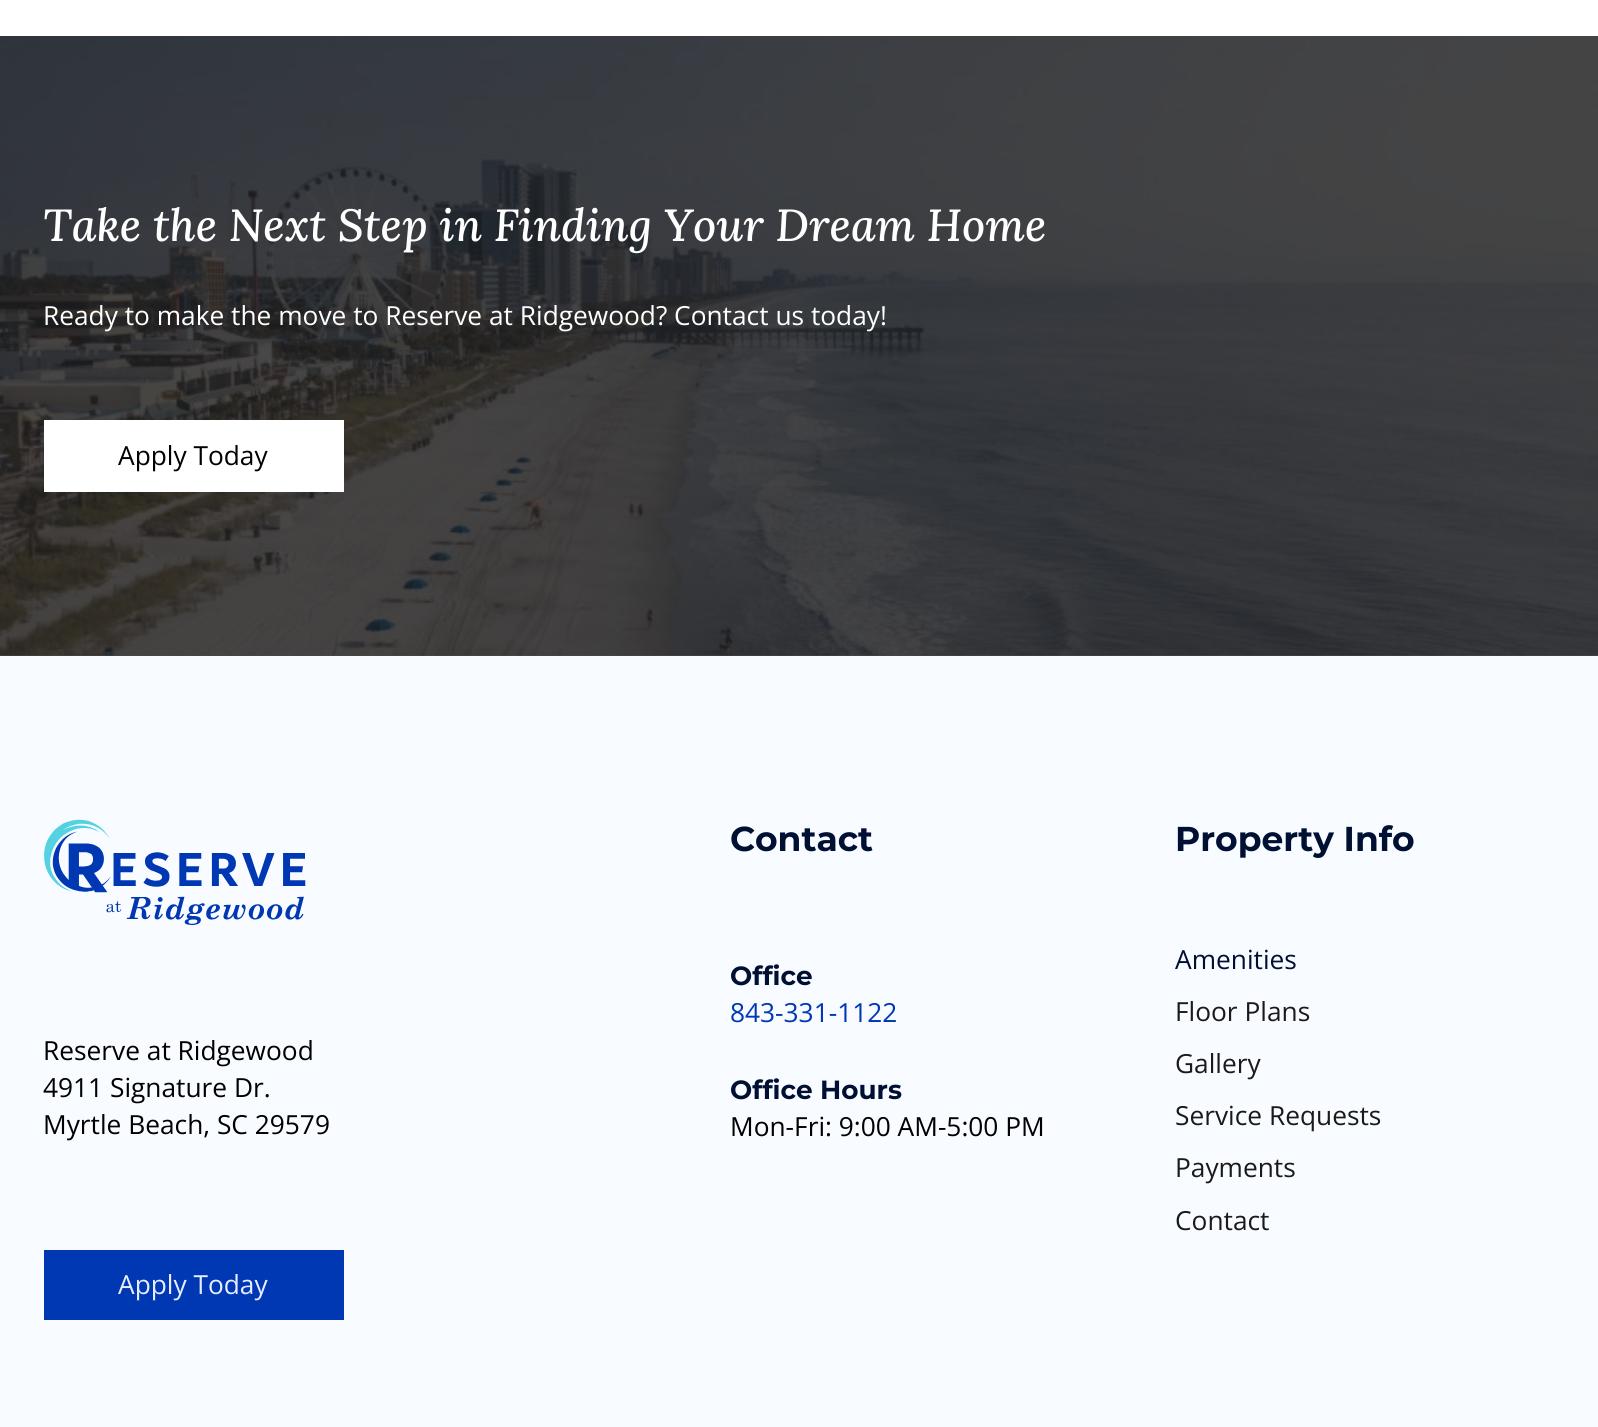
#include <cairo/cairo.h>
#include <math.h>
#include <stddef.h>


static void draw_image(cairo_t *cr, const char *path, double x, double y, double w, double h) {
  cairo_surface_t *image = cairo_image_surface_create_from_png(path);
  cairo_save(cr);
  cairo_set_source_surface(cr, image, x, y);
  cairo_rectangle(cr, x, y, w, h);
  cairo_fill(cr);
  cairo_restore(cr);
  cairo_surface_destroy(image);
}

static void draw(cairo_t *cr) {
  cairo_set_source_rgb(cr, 1, 1, 1);
  cairo_paint(cr);
  cairo_set_source_rgb(cr, 72 / 255.0, 72 / 255.0, 72 / 255.0);
  cairo_rectangle(cr, 0, 655, 1598, 1);
  cairo_fill(cr);
  draw_image(cr, "images/1.png", 0, 36, 1598, 620);
  cairo_set_source_rgb(cr, 1, 1, 1);
  cairo_rectangle(cr, 44, 420, 300, 72);
  cairo_fill(cr);
  cairo_set_source_rgb(cr, 248 / 255.0, 251 / 255.0, 1);
  cairo_rectangle(cr, 0, 656, 1598, 771);
  cairo_fill(cr);
  draw_image(cr, "images/2.png", 44, 819, 262, 106);
  cairo_set_source_rgb(cr, 0, 56 / 255.0, 180 / 255.0);
  cairo_rectangle(cr, 44, 1250, 300, 70);
  cairo_fill(cr);
  cairo_select_font_face(cr, "Lora Medium", CAIRO_FONT_SLANT_ITALIC, CAIRO_FONT_WEIGHT_NORMAL);
  cairo_set_font_size(cr, 45);
  cairo_set_source_rgb(cr, 1, 1, 1);
  cairo_move_to(cr, 43, 241);
  cairo_show_text(cr, "Take the Next Step in Finding Your Dream Home");
  cairo_select_font_face(cr, "Open Sans", CAIRO_FONT_SLANT_NORMAL, CAIRO_FONT_WEIGHT_NORMAL);
  cairo_set_font_size(cr, 26.3);
  cairo_move_to(cr, 43, 325);
  cairo_show_text(cr, "Ready to make the move to Reserve at Ridgewood? Contact us today!");
  cairo_set_source_rgb(cr, 0, 0, 0);
  cairo_move_to(cr, 118, 465);
  cairo_show_text(cr, "Apply Today");
  cairo_move_to(cr, 43, 1060);
  cairo_show_text(cr, "Reserve at Ridgewood");
  cairo_move_to(cr, 43, 1097);
  cairo_show_text(cr, "4911 Signature Dr.");
  cairo_move_to(cr, 43, 1134);
  cairo_show_text(cr, "Myrtle Beach, SC 29579");
  cairo_set_source_rgb(cr, 230 / 255.0, 238 / 255.0, 1);
  cairo_move_to(cr, 118, 1294);
  cairo_show_text(cr, "Apply Today");
  cairo_select_font_face(cr, "Montserrat", CAIRO_FONT_SLANT_NORMAL, CAIRO_FONT_WEIGHT_BOLD);
  cairo_set_font_size(cr, 34.5);
  cairo_set_source_rgb(cr, 0, 16 / 255.0, 51 / 255.0);
  cairo_move_to(cr, 730, 851);
  cairo_show_text(cr, "Contact");
  cairo_set_font_size(cr, 26.3);
  cairo_move_to(cr, 730, 985);
  cairo_show_text(cr, "Office");
  cairo_select_font_face(cr, "Open Sans", CAIRO_FONT_SLANT_NORMAL, CAIRO_FONT_WEIGHT_NORMAL);
  cairo_set_source_rgb(cr, 0, 56 / 255.0, 180 / 255.0);
  cairo_move_to(cr, 730, 1022);
  cairo_show_text(cr, "843-331-1122");
  cairo_select_font_face(cr, "Montserrat", CAIRO_FONT_SLANT_NORMAL, CAIRO_FONT_WEIGHT_BOLD);
  cairo_set_source_rgb(cr, 0, 16 / 255.0, 51 / 255.0);
  cairo_move_to(cr, 730, 1099);
  cairo_show_text(cr, "Office Hours");
  cairo_select_font_face(cr, "Open Sans", CAIRO_FONT_SLANT_NORMAL, CAIRO_FONT_WEIGHT_NORMAL);
  cairo_set_source_rgb(cr, 0, 0, 0);
  cairo_move_to(cr, 730, 1136);
  cairo_show_text(cr, "Mon-Fri: 9:00 AM-5:00 PM");
  cairo_select_font_face(cr, "Montserrat", CAIRO_FONT_SLANT_NORMAL, CAIRO_FONT_WEIGHT_BOLD);
  cairo_set_font_size(cr, 34.5);
  cairo_set_source_rgb(cr, 0, 16 / 255.0, 51 / 255.0);
  cairo_move_to(cr, 1175, 851);
  cairo_show_text(cr, "Property Info");
  cairo_select_font_face(cr, "Open Sans", CAIRO_FONT_SLANT_NORMAL, CAIRO_FONT_WEIGHT_NORMAL);
  cairo_set_font_size(cr, 26.3);
  cairo_move_to(cr, 1175, 969);
  cairo_show_text(cr, "Amenities");
  cairo_set_source_rgb(cr, 26 / 255.0, 26 / 255.0, 26 / 255.0);
  cairo_move_to(cr, 1175, 1021);
  cairo_show_text(cr, "Floor Plans");
  cairo_move_to(cr, 1175, 1073);
  cairo_show_text(cr, "Gallery");
  cairo_move_to(cr, 1175, 1125);
  cairo_show_text(cr, "Service Requests");
  cairo_move_to(cr, 1175, 1177);
  cairo_show_text(cr, "Payments");
  cairo_move_to(cr, 1175, 1230);
  cairo_show_text(cr, "Contact");
}

int main(void) {
  cairo_surface_t *surface = cairo_image_surface_create(CAIRO_FORMAT_RGB24, 1598, 1427);
  cairo_t *cr = cairo_create(surface);
  cairo_font_options_t *options = cairo_font_options_create();
  cairo_font_options_set_hint_metrics(options, CAIRO_HINT_METRICS_OFF);
  cairo_font_options_set_hint_style(options, CAIRO_HINT_STYLE_NONE);
  cairo_set_font_options(cr, options);
  cairo_set_miter_limit(cr, 4);
  draw(cr);
  cairo_surface_write_to_png(surface, "out.png");
  cairo_font_options_destroy(options);
  cairo_destroy(cr);
  cairo_surface_destroy(surface);
  return 0;
}
